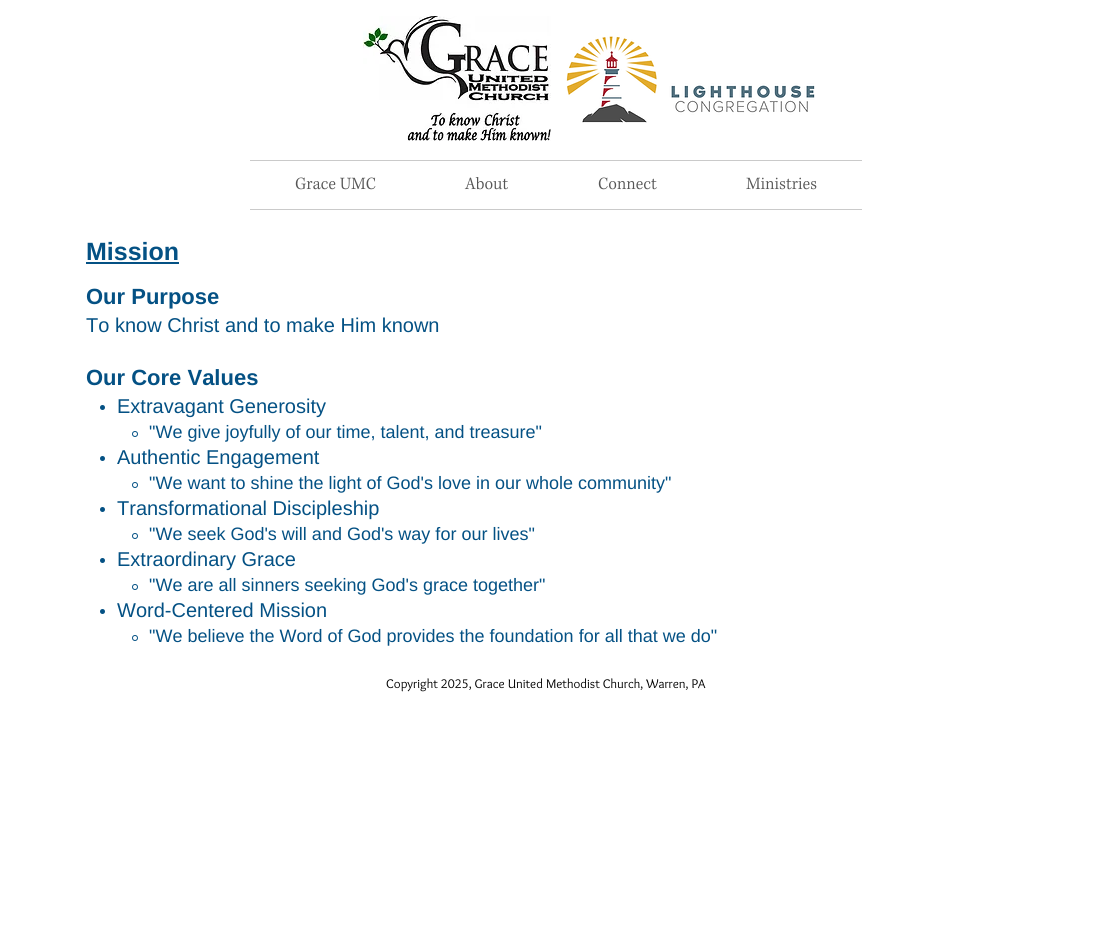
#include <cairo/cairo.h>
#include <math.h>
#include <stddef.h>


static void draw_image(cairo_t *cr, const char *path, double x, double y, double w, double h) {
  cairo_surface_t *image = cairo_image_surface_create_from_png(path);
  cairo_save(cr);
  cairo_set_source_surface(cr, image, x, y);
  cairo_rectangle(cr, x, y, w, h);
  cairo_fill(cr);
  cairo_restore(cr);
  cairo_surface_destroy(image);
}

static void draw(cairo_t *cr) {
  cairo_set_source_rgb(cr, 1, 1, 1);
  cairo_paint(cr);
  draw_image(cr, "images/1.png", 363, 16, 188, 125);
  draw_image(cr, "images/2.png", 566, 36, 249, 87);
  cairo_set_source_rgb(cr, 202 / 255.0, 202 / 255.0, 202 / 255.0);
  cairo_rectangle(cr, 250, 160, 612, 1);
  cairo_fill(cr);
  cairo_rectangle(cr, 250, 209, 612, 1);
  cairo_fill(cr);
  draw_image(cr, "images/3.png", 295, 177, 81, 13);
  draw_image(cr, "images/4.png", 464, 177, 44, 13);
  draw_image(cr, "images/5.png", 598, 177, 59, 13);
  draw_image(cr, "images/6.png", 746, 177, 71, 13);
  cairo_set_source_rgb(cr, 4 / 255.0, 81 / 255.0, 132 / 255.0);
  cairo_rectangle(cr, 86, 262, 93, 2);
  cairo_fill(cr);
  cairo_arc(cr, 102.5, 407.5, 2.5, 0, 2 * M_PI);
  cairo_fill(cr);
  cairo_arc(cr, 135, 434, 2.5, 0, 2 * M_PI);
  cairo_set_line_width(cr, 1);
  cairo_stroke(cr);
  cairo_arc(cr, 102.5, 458.5, 2.5, 0, 2 * M_PI);
  cairo_fill(cr);
  cairo_arc(cr, 135, 485, 2.5, 0, 2 * M_PI);
  cairo_stroke(cr);
  cairo_arc(cr, 102.5, 509.5, 2.5, 0, 2 * M_PI);
  cairo_fill(cr);
  cairo_arc(cr, 135, 536, 2.5, 0, 2 * M_PI);
  cairo_stroke(cr);
  cairo_arc(cr, 102.5, 560.5, 2.5, 0, 2 * M_PI);
  cairo_fill(cr);
  cairo_arc(cr, 135, 587, 2.5, 0, 2 * M_PI);
  cairo_stroke(cr);
  cairo_arc(cr, 102.5, 611.5, 2.5, 0, 2 * M_PI);
  cairo_fill(cr);
  cairo_arc(cr, 135, 638, 2.5, 0, 2 * M_PI);
  cairo_stroke(cr);
  cairo_select_font_face(cr, "Liberation Sans", CAIRO_FONT_SLANT_NORMAL, CAIRO_FONT_WEIGHT_BOLD);
  cairo_set_font_size(cr, 25);
  cairo_move_to(cr, 86, 260);
  cairo_show_text(cr, "Mission");
  cairo_set_font_size(cr, 22);
  cairo_move_to(cr, 86, 304);
  cairo_show_text(cr, "Our Purpose");
  cairo_select_font_face(cr, "Liberation Sans", CAIRO_FONT_SLANT_NORMAL, CAIRO_FONT_WEIGHT_NORMAL);
  cairo_set_font_size(cr, 20);
  cairo_move_to(cr, 86, 332);
  cairo_show_text(cr, "To know Christ and to make Him known");
  cairo_select_font_face(cr, "Liberation Sans", CAIRO_FONT_SLANT_NORMAL, CAIRO_FONT_WEIGHT_BOLD);
  cairo_set_font_size(cr, 22);
  cairo_move_to(cr, 86, 385);
  cairo_show_text(cr, "Our Core Values");
  cairo_select_font_face(cr, "Liberation Sans", CAIRO_FONT_SLANT_NORMAL, CAIRO_FONT_WEIGHT_NORMAL);
  cairo_set_font_size(cr, 20);
  cairo_move_to(cr, 117, 413);
  cairo_show_text(cr, "Extravagant Generosity");
  cairo_set_font_size(cr, 18);
  cairo_move_to(cr, 149, 438);
  cairo_show_text(cr, "\"We give joyfully of our time, talent, and treasure\"");
  cairo_set_font_size(cr, 20);
  cairo_move_to(cr, 117, 464);
  cairo_show_text(cr, "Authentic Engagement");
  cairo_set_font_size(cr, 18);
  cairo_move_to(cr, 149, 489);
  cairo_show_text(cr, "\"We want to shine the light of God's love in our whole community\"");
  cairo_set_font_size(cr, 20);
  cairo_move_to(cr, 117, 515);
  cairo_show_text(cr, "Transformational Discipleship");
  cairo_set_font_size(cr, 18);
  cairo_move_to(cr, 149, 540);
  cairo_show_text(cr, "\"We seek God's will and God's way for our lives\"");
  cairo_set_font_size(cr, 20);
  cairo_move_to(cr, 117, 566);
  cairo_show_text(cr, "Extraordinary Grace");
  cairo_set_font_size(cr, 18);
  cairo_move_to(cr, 149, 591);
  cairo_show_text(cr, "\"We are all sinners seeking God's grace together\"");
  cairo_set_font_size(cr, 20);
  cairo_move_to(cr, 117, 617);
  cairo_show_text(cr, "Word-Centered Mission");
  cairo_set_font_size(cr, 18);
  cairo_move_to(cr, 149, 642);
  cairo_show_text(cr, "\"We believe the Word of God provides the foundation for all that we do\"");
  cairo_select_font_face(cr, "Overlock", CAIRO_FONT_SLANT_NORMAL, CAIRO_FONT_WEIGHT_NORMAL);
  cairo_set_font_size(cr, 13);
  cairo_set_source_rgb(cr, 0, 0, 0);
  cairo_move_to(cr, 386, 688);
  cairo_show_text(cr, "Copyright 2025, Grace United Methodist Church, Warren, PA");
}

int main(void) {
  cairo_surface_t *surface = cairo_image_surface_create(CAIRO_FORMAT_RGB24, 1112, 945);
  cairo_t *cr = cairo_create(surface);
  cairo_font_options_t *options = cairo_font_options_create();
  cairo_font_options_set_hint_metrics(options, CAIRO_HINT_METRICS_OFF);
  cairo_font_options_set_hint_style(options, CAIRO_HINT_STYLE_NONE);
  cairo_set_font_options(cr, options);
  cairo_set_miter_limit(cr, 4);
  draw(cr);
  cairo_surface_write_to_png(surface, "out.png");
  cairo_font_options_destroy(options);
  cairo_destroy(cr);
  cairo_surface_destroy(surface);
  return 0;
}
